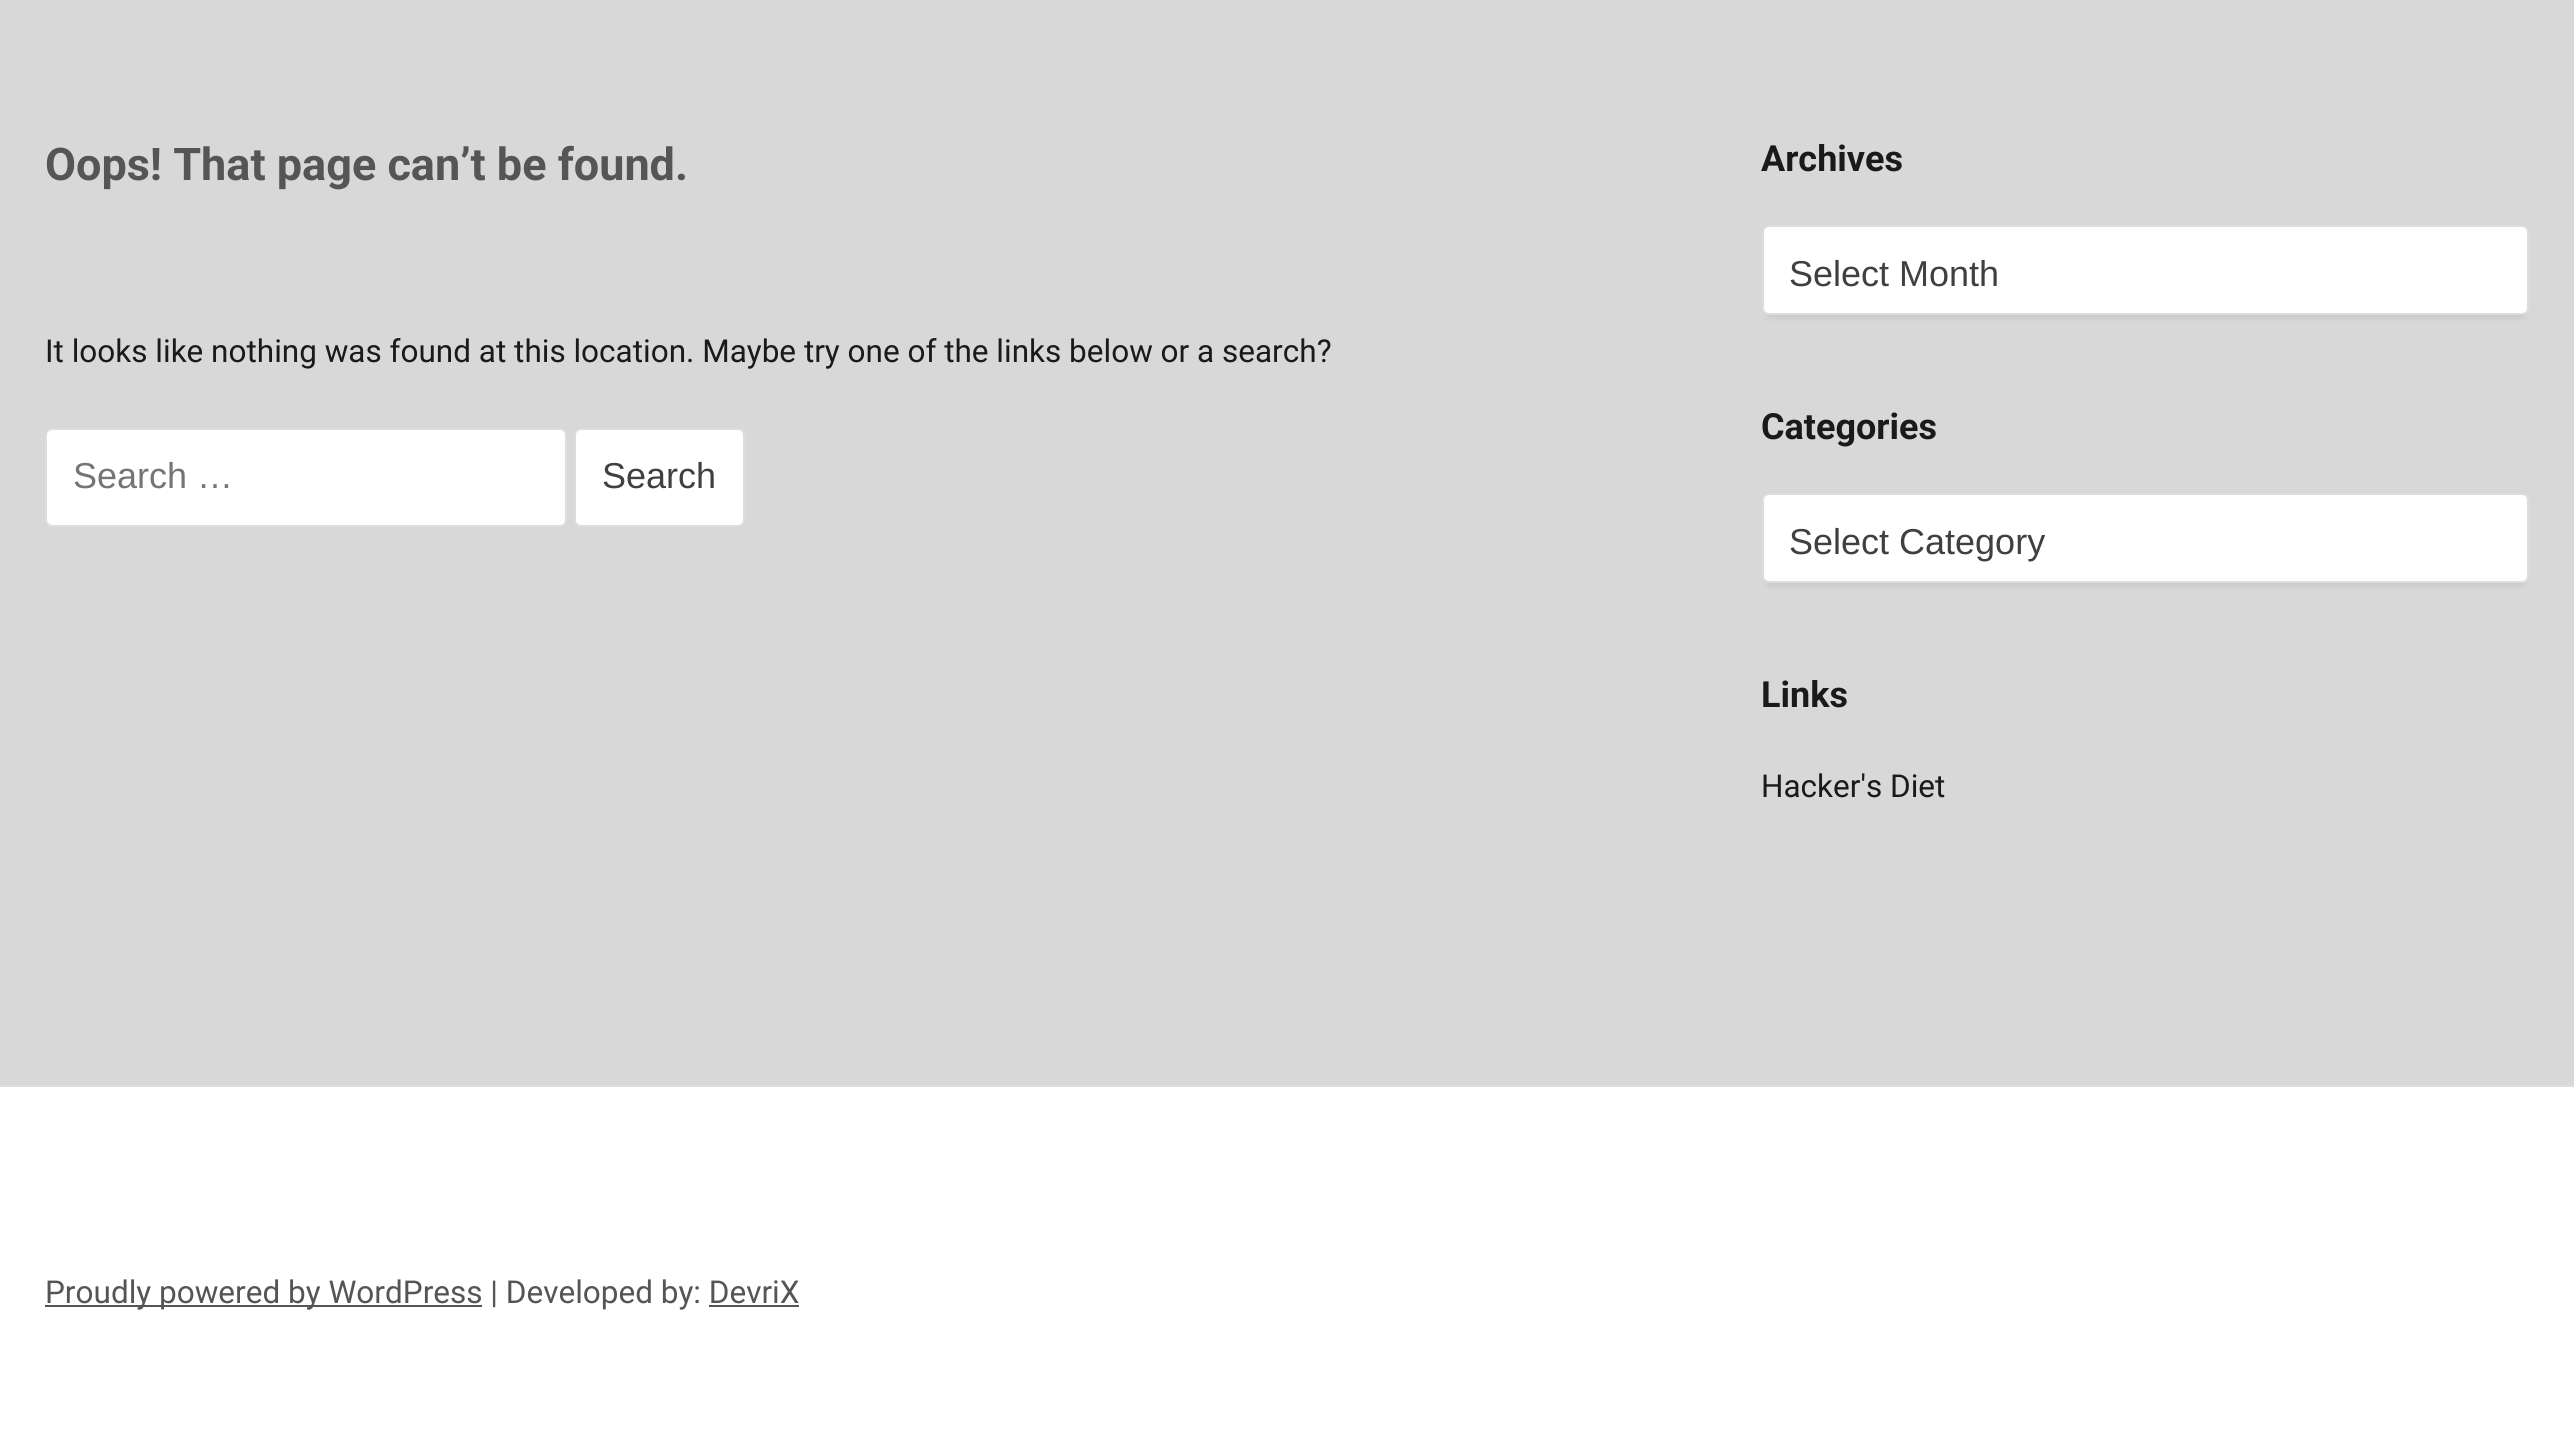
#include <cairo/cairo.h>
#include <math.h>
#include <stddef.h>


static void rounded_rect(cairo_t *cr, double x, double y, double w, double h, double r) {
  cairo_new_sub_path(cr);
  cairo_arc(cr, x + w - r, y + h - r, r, 0, M_PI / 2);
  cairo_arc(cr, x + r, y + h - r, r, M_PI / 2, M_PI);
  cairo_arc(cr, x + r, y + r, r, M_PI, 1.5 * M_PI);
  cairo_arc(cr, x + w - r, y + r, r, 1.5 * M_PI, 2 * M_PI);
  cairo_close_path(cr);
}

static void draw_shadow(cairo_t *cr, double x, double y, double w, double h, double r, double blur, double alpha) {
  cairo_push_group_with_content(cr, CAIRO_CONTENT_ALPHA);
  cairo_set_operator(cr, CAIRO_OPERATOR_SOURCE);
  for (int i = 15; i >= -15 && fmin(w, h) + blur * i / 3 > 0; i -= 2) {
    double e = blur * i / 6;
    cairo_set_source_rgba(cr, 0, 0, 0, alpha * erfc((i - 1) / 8.5) / 2);
    rounded_rect(cr, x - e, y - e, w + 2 * e, h + 2 * e, fmax(0, fmin(r + e + blur * .6, fmin(w, h) / 2 + e)));
    cairo_fill(cr);
  }
  cairo_pattern_t *soft = cairo_pop_group(cr);
  cairo_mask(cr, soft);
  cairo_pattern_destroy(soft);
}

static void draw(cairo_t *cr) {
  cairo_set_source_rgb(cr, 216 / 255.0, 216 / 255.0, 216 / 255.0);
  cairo_paint(cr);
  cairo_set_source_rgb(cr, 1, 1, 1);
  rounded_rect(cr, 46, 429, 520, 97, 6);
  cairo_fill_preserve(cr);
  cairo_set_source_rgb(cr, 221 / 255.0, 221 / 255.0, 221 / 255.0);
  cairo_stroke(cr);
  cairo_set_source_rgb(cr, 1, 1, 1);
  rounded_rect(cr, 575, 429, 169, 97, 6);
  cairo_fill_preserve(cr);
  cairo_set_source_rgb(cr, 221 / 255.0, 221 / 255.0, 221 / 255.0);
  cairo_stroke(cr);
  cairo_set_source_rgb(cr, 0, 0, 0);
  draw_shadow(cr, 1769, 241, 753, 76, 0, 3.5, 0.1);
  cairo_set_source_rgb(cr, 1, 1, 1);
  rounded_rect(cr, 1763, 226, 765, 88, 6);
  cairo_fill_preserve(cr);
  cairo_set_source_rgb(cr, 221 / 255.0, 221 / 255.0, 221 / 255.0);
  cairo_stroke(cr);
  cairo_set_source_rgb(cr, 0, 0, 0);
  draw_shadow(cr, 1769, 509, 753, 76, 0, 3.5, 0.1);
  cairo_set_source_rgb(cr, 1, 1, 1);
  rounded_rect(cr, 1763, 494, 765, 88, 6);
  cairo_fill_preserve(cr);
  cairo_set_source_rgb(cr, 221 / 255.0, 221 / 255.0, 221 / 255.0);
  cairo_stroke(cr);
  cairo_set_source_rgb(cr, 1, 1, 1);
  cairo_rectangle(cr, 0, 1087, 2574, 359);
  cairo_fill(cr);
  cairo_set_source_rgb(cr, 221 / 255.0, 221 / 255.0, 221 / 255.0);
  cairo_rectangle(cr, 0, 1085, 2574, 2);
  cairo_fill(cr);
  cairo_set_source_rgb(cr, 85 / 255.0, 85 / 255.0, 85 / 255.0);
  cairo_rectangle(cr, 45, 1305, 437, 2);
  cairo_fill(cr);
  cairo_rectangle(cr, 709, 1305, 90, 2);
  cairo_fill(cr);
  cairo_select_font_face(cr, "Roboto", CAIRO_FONT_SLANT_NORMAL, CAIRO_FONT_WEIGHT_BOLD);
  cairo_set_font_size(cr, 45);
  cairo_move_to(cr, 45, 180);
  cairo_show_text(cr, "Oops! That page can’t be found.");
  cairo_select_font_face(cr, "Roboto", CAIRO_FONT_SLANT_NORMAL, CAIRO_FONT_WEIGHT_NORMAL);
  cairo_set_font_size(cr, 31.5);
  cairo_set_source_rgb(cr, 26 / 255.0, 26 / 255.0, 26 / 255.0);
  cairo_move_to(cr, 45, 362);
  cairo_show_text(cr, "It looks like nothing was found at this location. Maybe try one of the links below or a search?");
  cairo_select_font_face(cr, "Liberation Sans", CAIRO_FONT_SLANT_NORMAL, CAIRO_FONT_WEIGHT_NORMAL);
  cairo_set_font_size(cr, 36);
  cairo_set_source_rgb(cr, 117 / 255.0, 117 / 255.0, 117 / 255.0);
  cairo_move_to(cr, 73, 488);
  cairo_show_text(cr, "Search …");
  cairo_set_source_rgb(cr, 64 / 255.0, 64 / 255.0, 64 / 255.0);
  cairo_move_to(cr, 602, 488);
  cairo_show_text(cr, "Search");
  cairo_select_font_face(cr, "Roboto", CAIRO_FONT_SLANT_NORMAL, CAIRO_FONT_WEIGHT_BOLD);
  cairo_set_source_rgb(cr, 26 / 255.0, 26 / 255.0, 26 / 255.0);
  cairo_move_to(cr, 1761, 171);
  cairo_show_text(cr, "Archives");
  cairo_select_font_face(cr, "Liberation Sans", CAIRO_FONT_SLANT_NORMAL, CAIRO_FONT_WEIGHT_NORMAL);
  cairo_set_source_rgb(cr, 64 / 255.0, 64 / 255.0, 64 / 255.0);
  cairo_move_to(cr, 1789, 286);
  cairo_show_text(cr, "Select Month");
  cairo_select_font_face(cr, "Roboto", CAIRO_FONT_SLANT_NORMAL, CAIRO_FONT_WEIGHT_BOLD);
  cairo_set_source_rgb(cr, 26 / 255.0, 26 / 255.0, 26 / 255.0);
  cairo_move_to(cr, 1761, 439);
  cairo_show_text(cr, "Categories");
  cairo_select_font_face(cr, "Liberation Sans", CAIRO_FONT_SLANT_NORMAL, CAIRO_FONT_WEIGHT_NORMAL);
  cairo_set_source_rgb(cr, 64 / 255.0, 64 / 255.0, 64 / 255.0);
  cairo_move_to(cr, 1789, 554);
  cairo_show_text(cr, "Select Category");
  cairo_select_font_face(cr, "Roboto", CAIRO_FONT_SLANT_NORMAL, CAIRO_FONT_WEIGHT_BOLD);
  cairo_set_source_rgb(cr, 26 / 255.0, 26 / 255.0, 26 / 255.0);
  cairo_move_to(cr, 1761, 707);
  cairo_show_text(cr, "Links");
  cairo_select_font_face(cr, "Roboto", CAIRO_FONT_SLANT_NORMAL, CAIRO_FONT_WEIGHT_NORMAL);
  cairo_set_font_size(cr, 31.5);
  cairo_move_to(cr, 1761, 797);
  cairo_show_text(cr, "Hacker's Diet");
  cairo_set_source_rgb(cr, 85 / 255.0, 85 / 255.0, 85 / 255.0);
  cairo_move_to(cr, 45, 1303);
  cairo_show_text(cr, "Proudly powered by WordPress | Developed by: DevriX");
}

int main(void) {
  cairo_surface_t *surface = cairo_image_surface_create(CAIRO_FORMAT_RGB24, 2574, 1446);
  cairo_t *cr = cairo_create(surface);
  cairo_font_options_t *options = cairo_font_options_create();
  cairo_font_options_set_hint_metrics(options, CAIRO_HINT_METRICS_OFF);
  cairo_font_options_set_hint_style(options, CAIRO_HINT_STYLE_NONE);
  cairo_set_font_options(cr, options);
  cairo_set_miter_limit(cr, 4);
  draw(cr);
  cairo_surface_write_to_png(surface, "out.png");
  cairo_font_options_destroy(options);
  cairo_destroy(cr);
  cairo_surface_destroy(surface);
  return 0;
}
